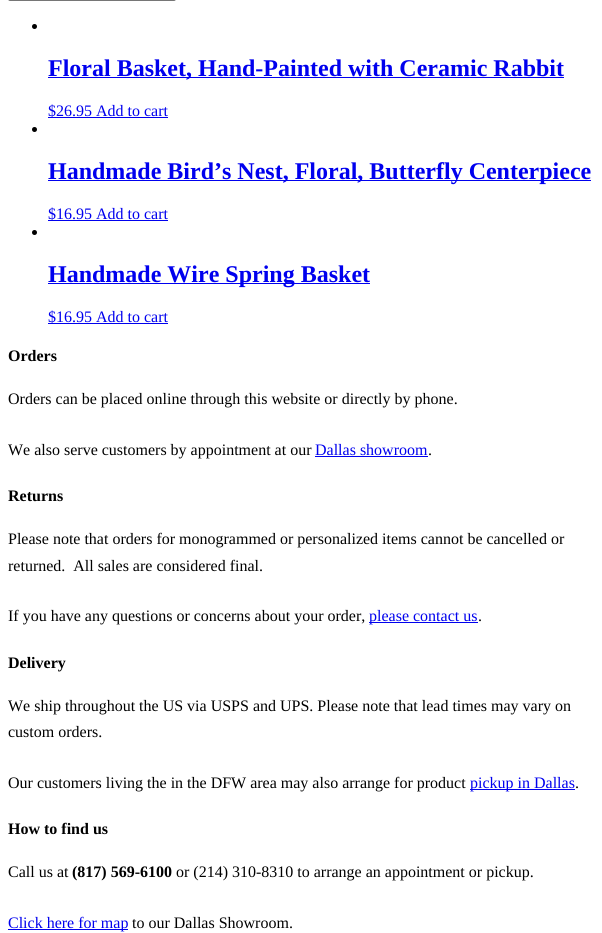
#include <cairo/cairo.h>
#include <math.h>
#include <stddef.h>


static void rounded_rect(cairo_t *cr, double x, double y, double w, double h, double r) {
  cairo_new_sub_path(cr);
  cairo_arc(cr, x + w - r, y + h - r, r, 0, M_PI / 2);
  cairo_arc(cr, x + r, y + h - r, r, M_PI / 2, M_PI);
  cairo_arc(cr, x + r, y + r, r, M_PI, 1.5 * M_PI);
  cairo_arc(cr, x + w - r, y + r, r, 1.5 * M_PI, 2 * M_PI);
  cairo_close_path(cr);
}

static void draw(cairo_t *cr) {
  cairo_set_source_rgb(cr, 1, 1, 1);
  cairo_paint(cr);
  rounded_rect(cr, 8.5, -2.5, 167, 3, 1.5);
  cairo_set_source_rgb(cr, 118 / 255.0, 118 / 255.0, 118 / 255.0);
  cairo_set_line_width(cr, 1);
  cairo_stroke(cr);
  cairo_set_source_rgb(cr, 0, 0, 0);
  cairo_arc(cr, 34.5, 26.5, 2.5, 0, 2 * M_PI);
  cairo_fill(cr);
  cairo_set_source_rgb(cr, 0, 0, 238 / 255.0);
  cairo_rectangle(cr, 48, 77, 516, 1);
  cairo_fill(cr);
  cairo_rectangle(cr, 48, 117, 120, 1);
  cairo_fill(cr);
  cairo_set_source_rgb(cr, 0, 0, 0);
  cairo_arc(cr, 34.5, 129.5, 2.5, 0, 2 * M_PI);
  cairo_fill(cr);
  cairo_set_source_rgb(cr, 0, 0, 238 / 255.0);
  cairo_rectangle(cr, 48, 180, 543, 1);
  cairo_fill(cr);
  cairo_rectangle(cr, 48, 220, 120, 1);
  cairo_fill(cr);
  cairo_set_source_rgb(cr, 0, 0, 0);
  cairo_arc(cr, 34.5, 232.5, 2.5, 0, 2 * M_PI);
  cairo_fill(cr);
  cairo_set_source_rgb(cr, 0, 0, 238 / 255.0);
  cairo_rectangle(cr, 48, 283, 322, 1);
  cairo_fill(cr);
  cairo_rectangle(cr, 48, 323, 120, 1);
  cairo_fill(cr);
  cairo_rectangle(cr, 315, 456, 113, 1);
  cairo_fill(cr);
  cairo_rectangle(cr, 369, 622, 109, 1);
  cairo_fill(cr);
  cairo_rectangle(cr, 470, 789, 105, 1);
  cairo_fill(cr);
  cairo_rectangle(cr, 8, 929, 120, 1);
  cairo_fill(cr);
  cairo_select_font_face(cr, "Liberation Serif", CAIRO_FONT_SLANT_NORMAL, CAIRO_FONT_WEIGHT_BOLD);
  cairo_set_font_size(cr, 24);
  cairo_move_to(cr, 48, 76);
  cairo_show_text(cr, "Floral Basket, Hand-Painted with Ceramic Rabbit");
  cairo_select_font_face(cr, "Liberation Serif", CAIRO_FONT_SLANT_NORMAL, CAIRO_FONT_WEIGHT_NORMAL);
  cairo_set_font_size(cr, 16);
  cairo_move_to(cr, 48, 116);
  cairo_show_text(cr, "$26.95 Add to cart");
  cairo_select_font_face(cr, "Liberation Serif", CAIRO_FONT_SLANT_NORMAL, CAIRO_FONT_WEIGHT_BOLD);
  cairo_set_font_size(cr, 24);
  cairo_move_to(cr, 48, 179);
  cairo_show_text(cr, "Handmade Bird’s Nest, Floral, Butterfly Centerpiece");
  cairo_select_font_face(cr, "Liberation Serif", CAIRO_FONT_SLANT_NORMAL, CAIRO_FONT_WEIGHT_NORMAL);
  cairo_set_font_size(cr, 16);
  cairo_move_to(cr, 48, 219);
  cairo_show_text(cr, "$16.95 Add to cart");
  cairo_select_font_face(cr, "Liberation Serif", CAIRO_FONT_SLANT_NORMAL, CAIRO_FONT_WEIGHT_BOLD);
  cairo_set_font_size(cr, 24);
  cairo_move_to(cr, 48, 282);
  cairo_show_text(cr, "Handmade Wire Spring Basket");
  cairo_select_font_face(cr, "Liberation Serif", CAIRO_FONT_SLANT_NORMAL, CAIRO_FONT_WEIGHT_NORMAL);
  cairo_set_font_size(cr, 16);
  cairo_move_to(cr, 48, 322);
  cairo_show_text(cr, "$16.95 Add to cart");
  cairo_select_font_face(cr, "Liberation Serif", CAIRO_FONT_SLANT_NORMAL, CAIRO_FONT_WEIGHT_BOLD);
  cairo_set_source_rgb(cr, 0, 0, 0);
  cairo_move_to(cr, 8, 361);
  cairo_show_text(cr, "Orders");
  cairo_select_font_face(cr, "Liberation Serif", CAIRO_FONT_SLANT_NORMAL, CAIRO_FONT_WEIGHT_NORMAL);
  cairo_move_to(cr, 8, 404);
  cairo_show_text(cr, "Orders can be placed online through this website or directly by phone.");
  cairo_move_to(cr, 8, 455);
  cairo_show_text(cr, "We also serve customers by appointment at our");
  cairo_set_source_rgb(cr, 0, 0, 238 / 255.0);
  cairo_move_to(cr, 315, 455);
  cairo_show_text(cr, "Dallas showroom");
  cairo_set_source_rgb(cr, 0, 0, 0);
  cairo_move_to(cr, 428, 455);
  cairo_show_text(cr, ".");
  cairo_select_font_face(cr, "Liberation Serif", CAIRO_FONT_SLANT_NORMAL, CAIRO_FONT_WEIGHT_BOLD);
  cairo_move_to(cr, 8, 501);
  cairo_show_text(cr, "Returns");
  cairo_select_font_face(cr, "Liberation Serif", CAIRO_FONT_SLANT_NORMAL, CAIRO_FONT_WEIGHT_NORMAL);
  cairo_move_to(cr, 8, 544);
  cairo_show_text(cr, "Please note that orders for monogrammed or personalized items cannot be cancelled or");
  cairo_move_to(cr, 8, 571);
  cairo_show_text(cr, "returned.  All sales are considered final.");
  cairo_move_to(cr, 8, 621);
  cairo_show_text(cr, "If you have any questions or concerns about your order,");
  cairo_set_source_rgb(cr, 0, 0, 238 / 255.0);
  cairo_move_to(cr, 369, 621);
  cairo_show_text(cr, "please contact us");
  cairo_set_source_rgb(cr, 0, 0, 0);
  cairo_move_to(cr, 478, 621);
  cairo_show_text(cr, ".");
  cairo_select_font_face(cr, "Liberation Serif", CAIRO_FONT_SLANT_NORMAL, CAIRO_FONT_WEIGHT_BOLD);
  cairo_move_to(cr, 8, 668);
  cairo_show_text(cr, "Delivery");
  cairo_select_font_face(cr, "Liberation Serif", CAIRO_FONT_SLANT_NORMAL, CAIRO_FONT_WEIGHT_NORMAL);
  cairo_move_to(cr, 8, 711);
  cairo_show_text(cr, "We ship throughout the US via USPS and UPS. Please note that lead times may vary on");
  cairo_move_to(cr, 8, 737);
  cairo_show_text(cr, "custom orders.");
  cairo_move_to(cr, 8, 788);
  cairo_show_text(cr, "Our customers living the in the DFW area may also arrange for product");
  cairo_set_source_rgb(cr, 0, 0, 238 / 255.0);
  cairo_move_to(cr, 470, 788);
  cairo_show_text(cr, "pickup in Dallas");
  cairo_set_source_rgb(cr, 0, 0, 0);
  cairo_move_to(cr, 575, 788);
  cairo_show_text(cr, ".");
  cairo_select_font_face(cr, "Liberation Serif", CAIRO_FONT_SLANT_NORMAL, CAIRO_FONT_WEIGHT_BOLD);
  cairo_move_to(cr, 8, 834);
  cairo_show_text(cr, "How to find us");
  cairo_select_font_face(cr, "Liberation Serif", CAIRO_FONT_SLANT_NORMAL, CAIRO_FONT_WEIGHT_NORMAL);
  cairo_move_to(cr, 8, 877);
  cairo_show_text(cr, "Call us at");
  cairo_select_font_face(cr, "Liberation Serif", CAIRO_FONT_SLANT_NORMAL, CAIRO_FONT_WEIGHT_BOLD);
  cairo_move_to(cr, 72, 877);
  cairo_show_text(cr, "(817) 569-6100");
  cairo_select_font_face(cr, "Liberation Serif", CAIRO_FONT_SLANT_NORMAL, CAIRO_FONT_WEIGHT_NORMAL);
  cairo_move_to(cr, 176, 877);
  cairo_show_text(cr, "or (214) 310-8310 to arrange an appointment or pickup.");
  cairo_set_source_rgb(cr, 0, 0, 238 / 255.0);
  cairo_move_to(cr, 8, 928);
  cairo_show_text(cr, "Click here for map");
  cairo_set_source_rgb(cr, 0, 0, 0);
  cairo_move_to(cr, 132, 928);
  cairo_show_text(cr, "to our Dallas Showroom.");
}

int main(void) {
  cairo_surface_t *surface = cairo_image_surface_create(CAIRO_FORMAT_RGB24, 602, 933);
  cairo_t *cr = cairo_create(surface);
  cairo_font_options_t *options = cairo_font_options_create();
  cairo_font_options_set_hint_metrics(options, CAIRO_HINT_METRICS_OFF);
  cairo_font_options_set_hint_style(options, CAIRO_HINT_STYLE_NONE);
  cairo_set_font_options(cr, options);
  cairo_set_miter_limit(cr, 4);
  draw(cr);
  cairo_surface_write_to_png(surface, "out.png");
  cairo_font_options_destroy(options);
  cairo_destroy(cr);
  cairo_surface_destroy(surface);
  return 0;
}
